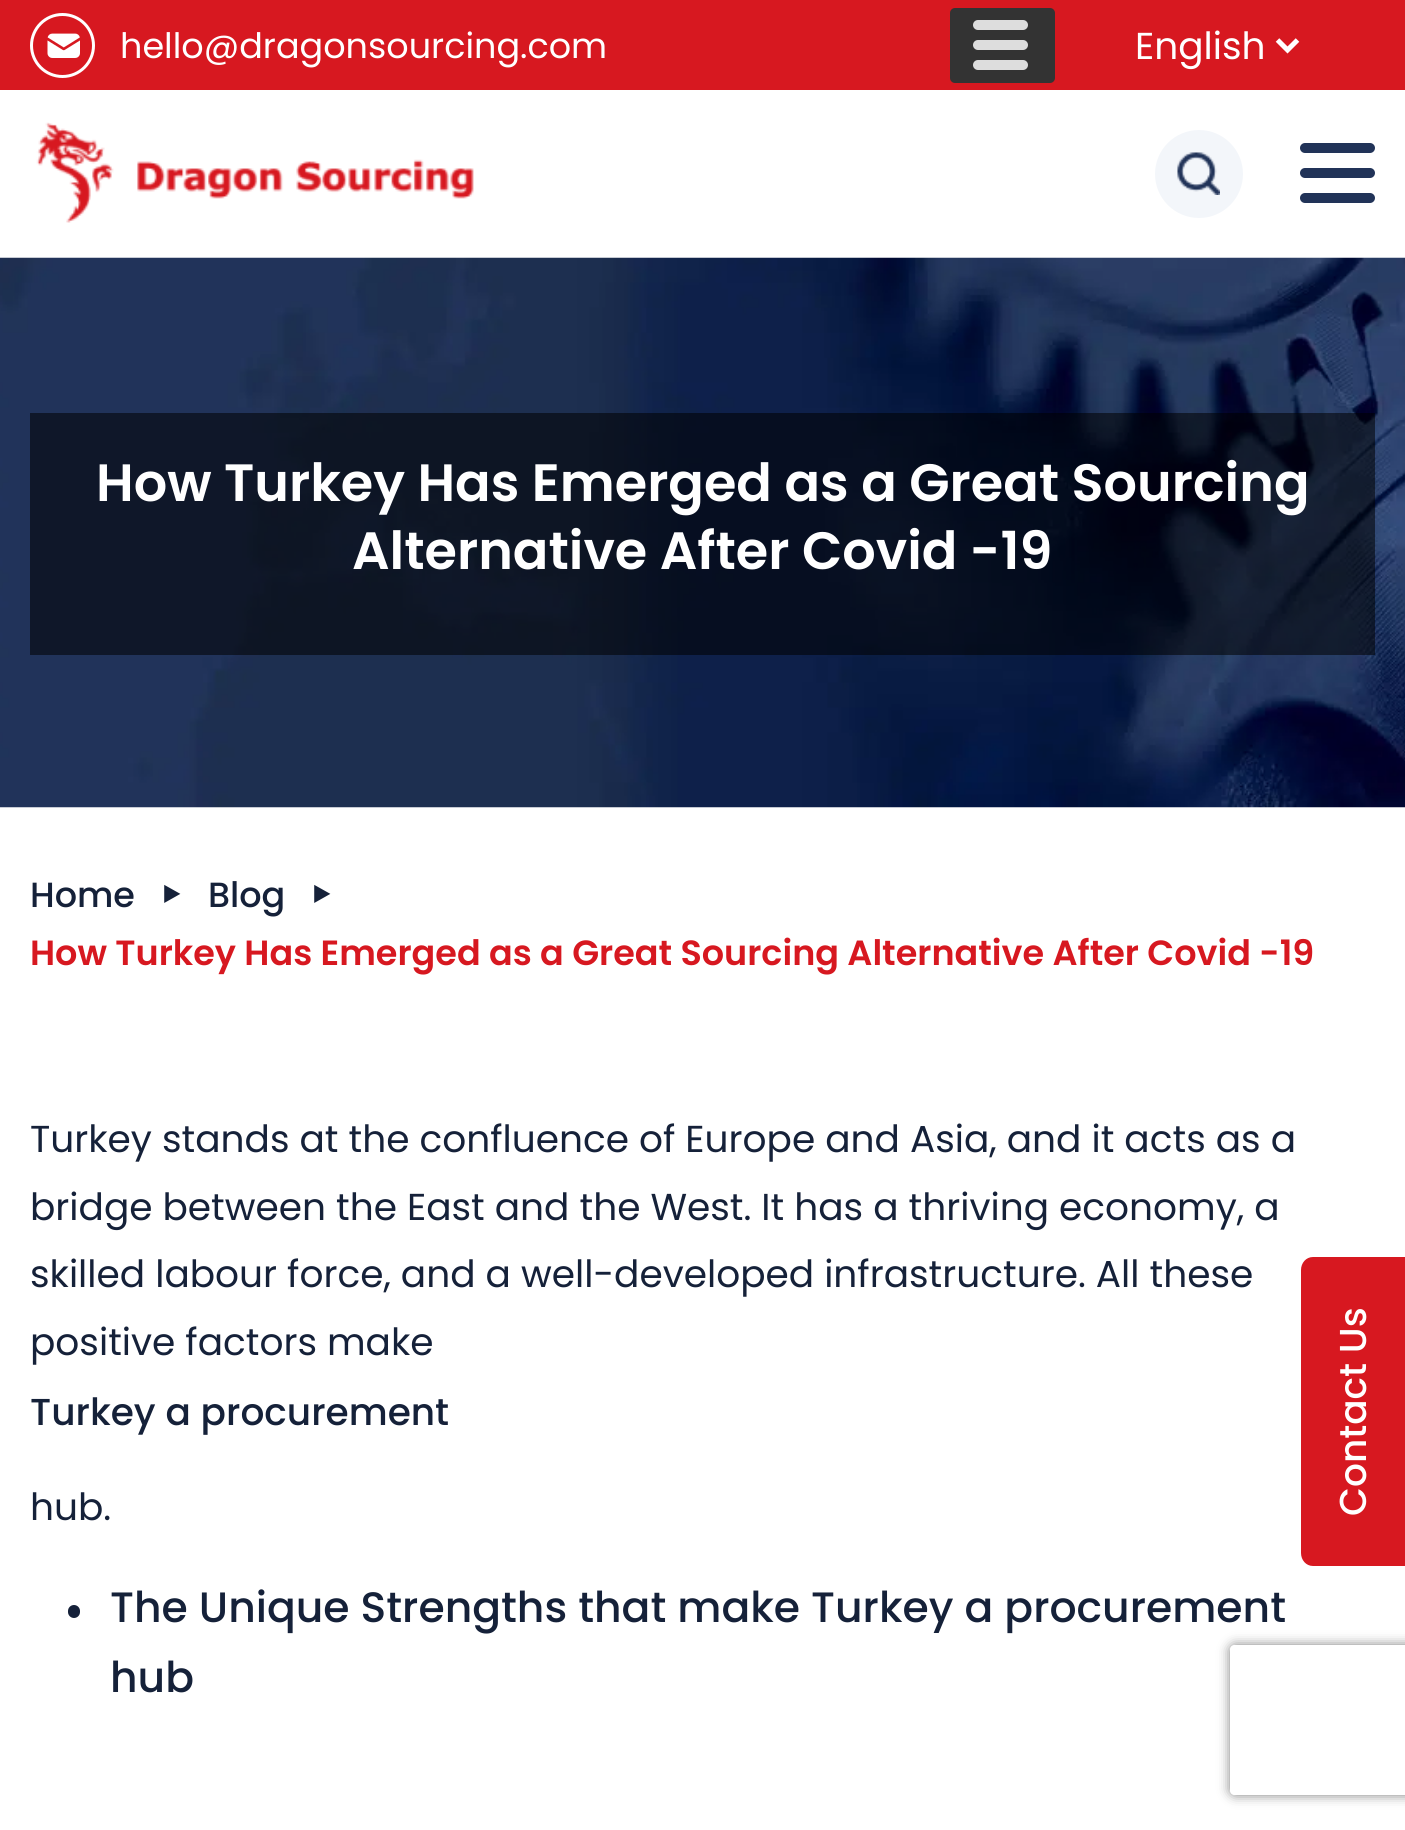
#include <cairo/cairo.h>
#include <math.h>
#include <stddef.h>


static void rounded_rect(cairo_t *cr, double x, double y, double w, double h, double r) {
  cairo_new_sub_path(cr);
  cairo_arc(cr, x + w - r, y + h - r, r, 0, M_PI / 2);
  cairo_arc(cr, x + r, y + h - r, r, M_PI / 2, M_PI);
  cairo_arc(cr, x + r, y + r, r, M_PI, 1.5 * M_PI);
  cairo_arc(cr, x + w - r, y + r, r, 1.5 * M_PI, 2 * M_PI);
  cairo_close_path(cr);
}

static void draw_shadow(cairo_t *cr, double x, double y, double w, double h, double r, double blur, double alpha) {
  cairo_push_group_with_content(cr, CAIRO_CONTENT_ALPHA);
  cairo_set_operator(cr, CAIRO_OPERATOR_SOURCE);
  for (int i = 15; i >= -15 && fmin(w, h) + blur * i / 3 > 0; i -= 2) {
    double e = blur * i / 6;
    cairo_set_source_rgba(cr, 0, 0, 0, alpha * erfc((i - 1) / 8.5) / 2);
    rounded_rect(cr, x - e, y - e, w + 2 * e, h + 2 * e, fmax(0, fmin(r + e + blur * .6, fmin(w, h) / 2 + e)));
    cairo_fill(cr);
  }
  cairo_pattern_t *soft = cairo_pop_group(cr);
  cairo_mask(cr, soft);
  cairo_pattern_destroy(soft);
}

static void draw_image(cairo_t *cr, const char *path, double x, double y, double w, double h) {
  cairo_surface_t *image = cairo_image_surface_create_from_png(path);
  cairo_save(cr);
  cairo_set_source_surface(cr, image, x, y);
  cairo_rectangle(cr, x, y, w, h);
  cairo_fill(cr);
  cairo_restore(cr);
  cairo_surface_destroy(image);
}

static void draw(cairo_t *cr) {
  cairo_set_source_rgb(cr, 1, 1, 1);
  cairo_paint(cr);
  cairo_set_source_rgb(cr, 215 / 255.0, 24 / 255.0, 32 / 255.0);
  cairo_rectangle(cr, 0, 0, 1405, 90);
  cairo_fill(cr);
  cairo_arc(cr, 62.5, 45.5, 31, 0, 2 * M_PI);
  cairo_set_source_rgb(cr, 1, 1, 1);
  cairo_set_line_width(cr, 3);
  cairo_stroke(cr);
  draw_image(cr, "images/1.png", 47, 33, 33, 25);
  cairo_set_source_rgb(cr, 51 / 255.0, 51 / 255.0, 51 / 255.0);
  rounded_rect(cr, 950, 8, 105, 75, 5);
  cairo_fill(cr);
  cairo_set_source_rgb(cr, 221 / 255.0, 221 / 255.0, 221 / 255.0);
  rounded_rect(cr, 973, 20, 55, 10, 5);
  cairo_fill(cr);
  rounded_rect(cr, 973, 40, 55, 10, 5);
  cairo_fill(cr);
  rounded_rect(cr, 973, 60, 55, 10, 5);
  cairo_fill(cr);
  cairo_new_path(cr);
  cairo_move_to(cr, 1277.5, 40);
  cairo_line_to(cr, 1287.5, 50);
  cairo_line_to(cr, 1297.5, 40);
  cairo_set_source_rgb(cr, 1, 1, 1);
  cairo_set_line_width(cr, 5);
  cairo_stroke(cr);
  draw_image(cr, "images/2.png", 36, 122, 438, 101);
  cairo_set_source_rgb(cr, 243 / 255.0, 246 / 255.0, 250 / 255.0);
  cairo_arc(cr, 1199, 174, 44, 0, 2 * M_PI);
  cairo_fill(cr);
  draw_image(cr, "images/3.png", 1177, 152, 43, 43);
  cairo_set_source_rgb(cr, 33 / 255.0, 51 / 255.0, 88 / 255.0);
  rounded_rect(cr, 1300, 143, 75, 10, 5);
  cairo_fill(cr);
  rounded_rect(cr, 1300, 168, 75, 10, 5);
  cairo_fill(cr);
  rounded_rect(cr, 1300, 193, 75, 10, 5);
  cairo_fill(cr);
  draw_image(cr, "images/4.png", 0, 257, 1405, 551);
  cairo_set_source_rgba(cr, 0, 0, 0, 0.55);
  cairo_rectangle(cr, 30, 413, 1345, 242);
  cairo_fill(cr);
  cairo_set_source_rgb(cr, 21 / 255.0, 33 / 255.0, 57 / 255.0);
  rounded_rect(cr, 68, 1605, 12, 13, 6);
  cairo_fill(cr);
  cairo_set_source_rgb(cr, 215 / 255.0, 24 / 255.0, 32 / 255.0);
  cairo_new_path(cr);
  cairo_move_to(cr, 1301, 1553);
  cairo_line_to(cr, 1301, 1270);
  cairo_curve_to(cr, 1301, 1263, 1306, 1257, 1313, 1257);
  cairo_line_to(cr, 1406, 1257);
  cairo_line_to(cr, 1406, 1566);
  cairo_line_to(cr, 1313, 1566);
  cairo_curve_to(cr, 1306, 1566, 1301, 1560, 1301, 1553);
  cairo_close_path(cr);
  cairo_fill(cr);
  cairo_save(cr);
  cairo_set_fill_rule(cr, CAIRO_FILL_RULE_EVEN_ODD);
  cairo_new_path(cr);
  cairo_move_to(cr, 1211, 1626);
  cairo_line_to(cr, 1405, 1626);
  cairo_line_to(cr, 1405, 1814);
  cairo_line_to(cr, 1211, 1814);
  cairo_close_path(cr);
  cairo_move_to(cr, 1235, 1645);
  cairo_line_to(cr, 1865, 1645);
  cairo_curve_to(cr, 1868, 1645, 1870, 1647, 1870, 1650);
  cairo_line_to(cr, 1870, 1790);
  cairo_curve_to(cr, 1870, 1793, 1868, 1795, 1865, 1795);
  cairo_line_to(cr, 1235, 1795);
  cairo_curve_to(cr, 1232, 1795, 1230, 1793, 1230, 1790);
  cairo_line_to(cr, 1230, 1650);
  cairo_curve_to(cr, 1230, 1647, 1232, 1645, 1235, 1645);
  cairo_close_path(cr);
  cairo_clip(cr);
  cairo_set_source_rgb(cr, 128 / 255.0, 128 / 255.0, 128 / 255.0);
  draw_shadow(cr, 1230, 1645, 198, 150, 5, 6, 1);
  cairo_restore(cr);
  cairo_select_font_face(cr, "Poppins", CAIRO_FONT_SLANT_NORMAL, CAIRO_FONT_WEIGHT_NORMAL);
  cairo_set_font_size(cr, 35);
  cairo_set_source_rgb(cr, 1, 1, 1);
  cairo_move_to(cr, 120, 58);
  cairo_show_text(cr, "hello@dragonsourcing.com");
  cairo_set_font_size(cr, 37.5);
  cairo_move_to(cr, 1135, 59);
  cairo_show_text(cr, "English");
  cairo_select_font_face(cr, "Poppins SemiBold", CAIRO_FONT_SLANT_NORMAL, CAIRO_FONT_WEIGHT_NORMAL);
  cairo_set_font_size(cr, 52.5);
  cairo_move_to(cr, 96, 501);
  cairo_show_text(cr, "How Turkey Has Emerged as a Great Sourcing");
  cairo_move_to(cr, 352, 569);
  cairo_show_text(cr, "Alternative After Covid -19");
  cairo_select_font_face(cr, "Poppins Medium", CAIRO_FONT_SLANT_NORMAL, CAIRO_FONT_WEIGHT_NORMAL);
  cairo_set_font_size(cr, 35);
  cairo_set_source_rgb(cr, 21 / 255.0, 33 / 255.0, 57 / 255.0);
  cairo_move_to(cr, 30, 907);
  cairo_show_text(cr, "Home");
  cairo_select_font_face(cr, "Noto Sans", CAIRO_FONT_SLANT_NORMAL, CAIRO_FONT_WEIGHT_NORMAL);
  cairo_set_font_size(cr, 62);
  cairo_move_to(cr, 160, 917);
  cairo_show_text(cr, "‣");
  cairo_select_font_face(cr, "Poppins Medium", CAIRO_FONT_SLANT_NORMAL, CAIRO_FONT_WEIGHT_NORMAL);
  cairo_set_font_size(cr, 35);
  cairo_move_to(cr, 208, 907);
  cairo_show_text(cr, "Blog");
  cairo_select_font_face(cr, "Noto Sans", CAIRO_FONT_SLANT_NORMAL, CAIRO_FONT_WEIGHT_NORMAL);
  cairo_set_font_size(cr, 62);
  cairo_move_to(cr, 310, 917);
  cairo_show_text(cr, "‣");
  cairo_select_font_face(cr, "Poppins SemiBold", CAIRO_FONT_SLANT_NORMAL, CAIRO_FONT_WEIGHT_NORMAL);
  cairo_set_font_size(cr, 35);
  cairo_set_source_rgb(cr, 215 / 255.0, 24 / 255.0, 32 / 255.0);
  cairo_move_to(cr, 30, 965);
  cairo_show_text(cr, "How Turkey Has Emerged as a Great Sourcing Alternative After Covid -19");
  cairo_select_font_face(cr, "Poppins", CAIRO_FONT_SLANT_NORMAL, CAIRO_FONT_WEIGHT_NORMAL);
  cairo_set_font_size(cr, 37.5);
  cairo_set_source_rgb(cr, 21 / 255.0, 33 / 255.0, 57 / 255.0);
  cairo_move_to(cr, 30, 1152);
  cairo_show_text(cr, "Turkey stands at the confluence of Europe and Asia, and it acts as a");
  cairo_move_to(cr, 30, 1220);
  cairo_show_text(cr, "bridge between the East and the West. It has a thriving economy, a");
  cairo_move_to(cr, 30, 1287);
  cairo_show_text(cr, "skilled labour force, and a well-developed infrastructure. All these");
  cairo_move_to(cr, 30, 1355);
  cairo_show_text(cr, "positive factors make");
  cairo_select_font_face(cr, "Poppins Medium", CAIRO_FONT_SLANT_NORMAL, CAIRO_FONT_WEIGHT_NORMAL);
  cairo_move_to(cr, 30, 1425);
  cairo_show_text(cr, "Turkey a procurement");
  cairo_select_font_face(cr, "Poppins", CAIRO_FONT_SLANT_NORMAL, CAIRO_FONT_WEIGHT_NORMAL);
  cairo_move_to(cr, 30, 1520);
  cairo_show_text(cr, "hub.");
  cairo_select_font_face(cr, "Poppins Medium", CAIRO_FONT_SLANT_NORMAL, CAIRO_FONT_WEIGHT_NORMAL);
  cairo_set_font_size(cr, 42.5);
  cairo_move_to(cr, 110, 1622);
  cairo_show_text(cr, "The Unique Strengths that make Turkey a procurement");
  cairo_move_to(cr, 110, 1692);
  cairo_show_text(cr, "hub");
  cairo_set_font_size(cr, 37.5);
  cairo_set_source_rgb(cr, 1, 1, 1);
  cairo_save(cr);
  cairo_translate(cr, 1366, 1516);
  cairo_rotate(cr, -90 * M_PI / 180);
  cairo_move_to(cr, 0, 0);
  cairo_show_text(cr, "Contact Us");
  cairo_restore(cr);
}

int main(void) {
  cairo_surface_t *surface = cairo_image_surface_create(CAIRO_FORMAT_RGB24, 1405, 1830);
  cairo_t *cr = cairo_create(surface);
  cairo_font_options_t *options = cairo_font_options_create();
  cairo_font_options_set_hint_metrics(options, CAIRO_HINT_METRICS_OFF);
  cairo_font_options_set_hint_style(options, CAIRO_HINT_STYLE_NONE);
  cairo_set_font_options(cr, options);
  cairo_set_miter_limit(cr, 4);
  draw(cr);
  cairo_surface_write_to_png(surface, "out.png");
  cairo_font_options_destroy(options);
  cairo_destroy(cr);
  cairo_surface_destroy(surface);
  return 0;
}
